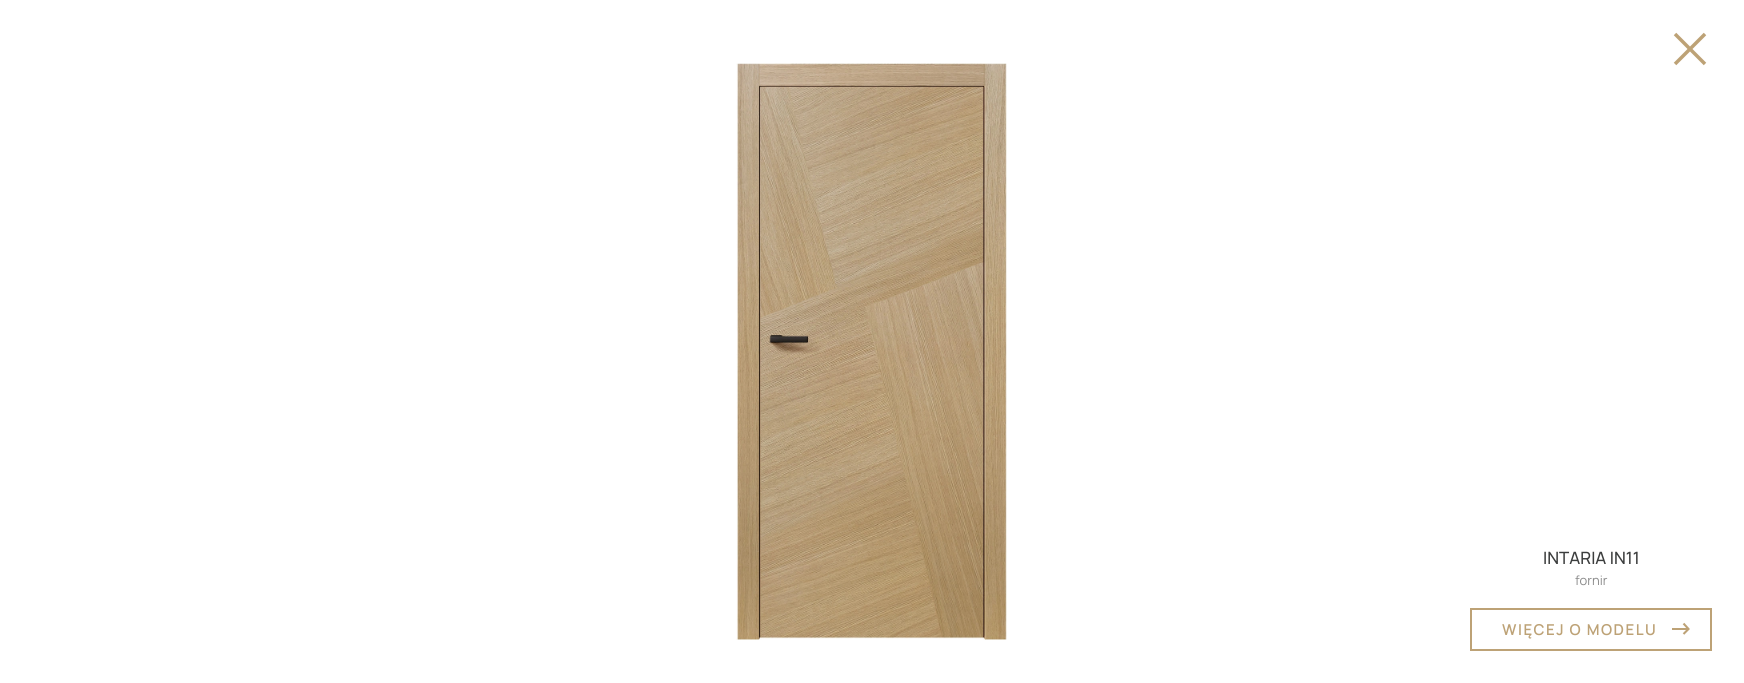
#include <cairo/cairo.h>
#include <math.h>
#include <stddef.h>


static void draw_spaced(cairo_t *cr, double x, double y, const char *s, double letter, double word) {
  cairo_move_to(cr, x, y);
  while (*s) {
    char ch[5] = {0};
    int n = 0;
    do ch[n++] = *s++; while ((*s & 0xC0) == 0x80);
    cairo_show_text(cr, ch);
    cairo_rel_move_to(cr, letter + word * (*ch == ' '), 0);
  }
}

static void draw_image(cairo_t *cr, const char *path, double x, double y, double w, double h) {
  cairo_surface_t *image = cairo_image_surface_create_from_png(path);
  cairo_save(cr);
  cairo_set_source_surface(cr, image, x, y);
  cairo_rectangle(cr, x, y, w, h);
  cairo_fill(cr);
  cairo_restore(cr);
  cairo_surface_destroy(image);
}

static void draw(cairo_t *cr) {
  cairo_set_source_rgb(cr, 1, 1, 1);
  cairo_paint(cr);
  cairo_new_path(cr);
  cairo_move_to(cr, 1675, 34);
  cairo_line_to(cr, 1705, 64);
  cairo_move_to(cr, 1705, 34);
  cairo_line_to(cr, 1675, 64);
  cairo_set_source_rgb(cr, 189 / 255.0, 162 / 255.0, 118 / 255.0);
  cairo_set_line_width(cr, 3.5);
  cairo_stroke(cr);
  draw_image(cr, "images/1.png", 736, 63, 271, 577);
  cairo_rectangle(cr, 1471, 609, 240, 41);
  cairo_set_line_width(cr, 2);
  cairo_stroke(cr);
  cairo_new_path(cr);
  cairo_move_to(cr, 1683.5, 634);
  cairo_line_to(cr, 1688.5, 629);
  cairo_line_to(cr, 1683.5, 623.5);
  cairo_set_line_width(cr, 2.1);
  cairo_stroke(cr);
  cairo_rectangle(cr, 1672, 628, 16, 2);
  cairo_fill(cr);
  cairo_select_font_face(cr, "Manrope Medium", CAIRO_FONT_SLANT_NORMAL, CAIRO_FONT_WEIGHT_NORMAL);
  cairo_set_font_size(cr, 17);
  cairo_set_source_rgb(cr, 60 / 255.0, 62 / 255.0, 62 / 255.0);
  cairo_move_to(cr, 1543, 564);
  cairo_show_text(cr, "INTARIA IN11");
  cairo_select_font_face(cr, "Manrope", CAIRO_FONT_SLANT_NORMAL, CAIRO_FONT_WEIGHT_NORMAL);
  cairo_set_font_size(cr, 13);
  cairo_set_source_rgb(cr, 139 / 255.0, 139 / 255.0, 139 / 255.0);
  cairo_move_to(cr, 1575, 585);
  cairo_show_text(cr, "fornir");
  cairo_select_font_face(cr, "Manrope SemiBold", CAIRO_FONT_SLANT_NORMAL, CAIRO_FONT_WEIGHT_NORMAL);
  cairo_set_font_size(cr, 15);
  cairo_set_source_rgb(cr, 189 / 255.0, 162 / 255.0, 118 / 255.0);
  draw_spaced(cr, 1502, 635, "WIĘCEJ O MODELU", 1.5, 0);
}

int main(void) {
  cairo_surface_t *surface = cairo_image_surface_create(CAIRO_FORMAT_RGB24, 1744, 683);
  cairo_t *cr = cairo_create(surface);
  cairo_font_options_t *options = cairo_font_options_create();
  cairo_font_options_set_hint_metrics(options, CAIRO_HINT_METRICS_OFF);
  cairo_font_options_set_hint_style(options, CAIRO_HINT_STYLE_NONE);
  cairo_set_font_options(cr, options);
  cairo_set_miter_limit(cr, 4);
  draw(cr);
  cairo_surface_write_to_png(surface, "out.png");
  cairo_font_options_destroy(options);
  cairo_destroy(cr);
  cairo_surface_destroy(surface);
  return 0;
}
